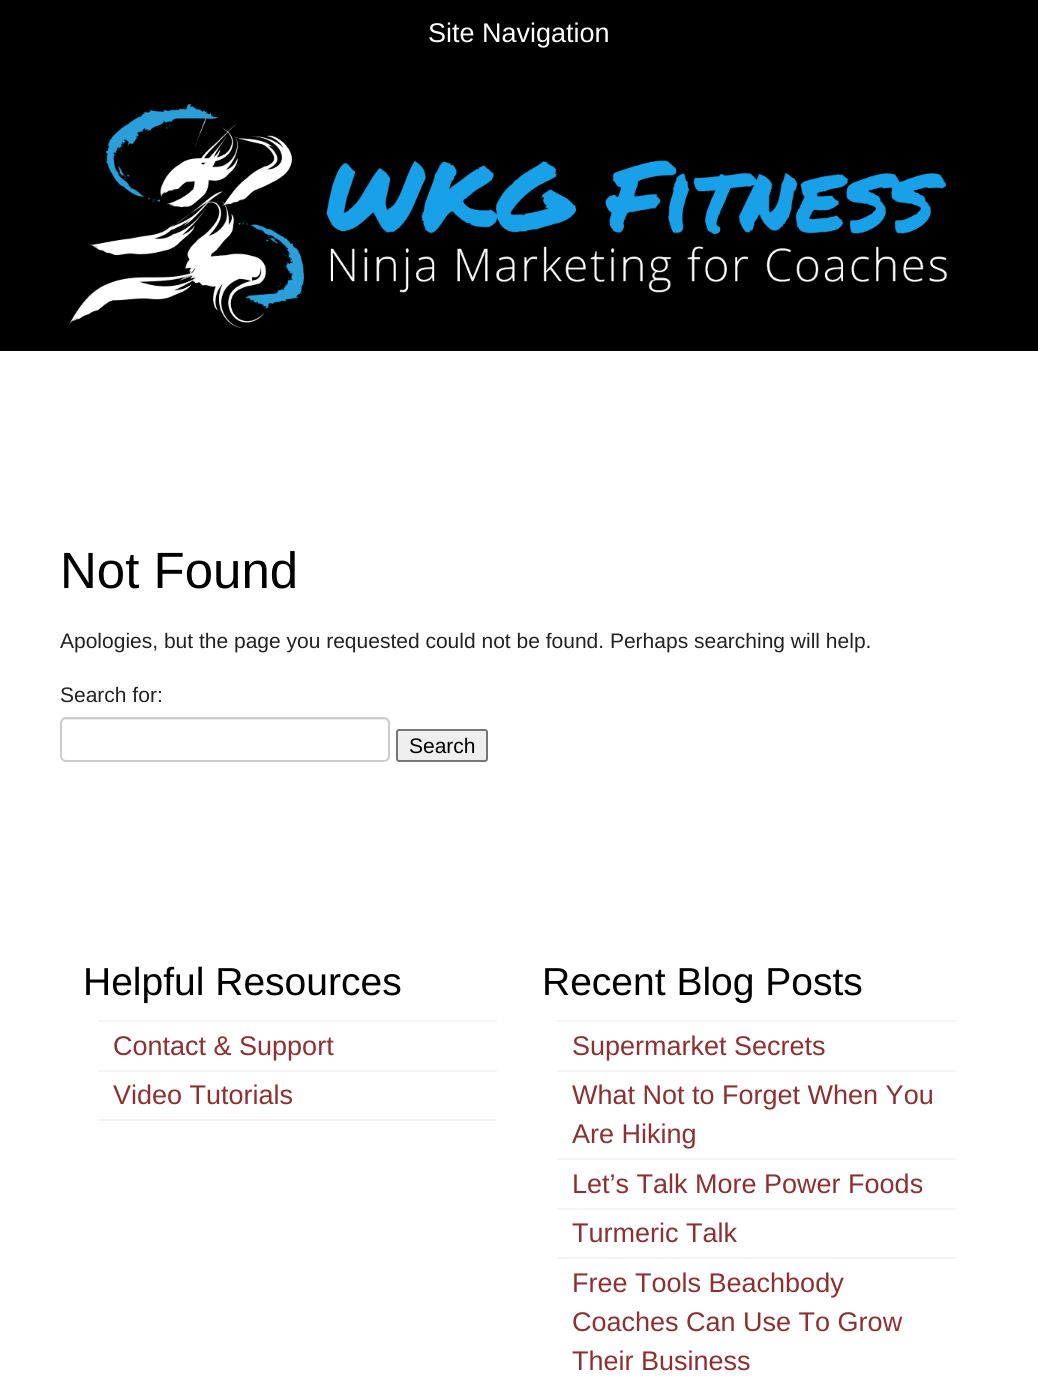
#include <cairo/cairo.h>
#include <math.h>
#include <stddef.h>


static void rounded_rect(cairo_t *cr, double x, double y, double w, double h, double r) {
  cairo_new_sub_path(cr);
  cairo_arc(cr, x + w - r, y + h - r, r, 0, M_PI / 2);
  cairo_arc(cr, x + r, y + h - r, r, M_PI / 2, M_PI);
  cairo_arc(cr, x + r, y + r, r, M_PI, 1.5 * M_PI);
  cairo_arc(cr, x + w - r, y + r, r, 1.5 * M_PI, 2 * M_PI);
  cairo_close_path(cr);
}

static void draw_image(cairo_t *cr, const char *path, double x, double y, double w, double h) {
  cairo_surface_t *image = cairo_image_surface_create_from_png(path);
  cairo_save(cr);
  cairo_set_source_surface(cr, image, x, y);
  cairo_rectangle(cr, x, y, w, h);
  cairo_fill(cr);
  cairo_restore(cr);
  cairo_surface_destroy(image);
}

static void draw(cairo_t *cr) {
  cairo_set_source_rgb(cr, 1, 1, 1);
  cairo_paint(cr);
  cairo_set_source_rgb(cr, 0, 0, 0);
  cairo_rectangle(cr, 0, 0, 1038, 351);
  cairo_fill(cr);
  draw_image(cr, "images/1.png", 69, 104, 879, 224);
  cairo_set_source_rgb(cr, 236 / 255.0, 236 / 255.0, 236 / 255.0);
  cairo_new_path(cr);
  cairo_move_to(cr, 66, 720);
  cairo_line_to(cr, 384, 720);
  cairo_curve_to(cr, 386, 720, 388, 722, 388, 724);
  cairo_line_to(cr, 388, 759);
  cairo_curve_to(cr, 389, 758, 389, 757, 389, 756);
  cairo_line_to(cr, 389, 724);
  cairo_curve_to(cr, 389, 721, 387, 719, 384, 719);
  cairo_line_to(cr, 67, 719);
  cairo_curve_to(cr, 64, 719, 62, 721, 62, 724);
  cairo_curve_to(cr, 62, 722, 64, 720, 66, 720);
  cairo_close_path(cr);
  cairo_fill(cr);
  rounded_rect(cr, 61, 718, 328, 43, 5);
  cairo_set_source_rgb(cr, 204 / 255.0, 204 / 255.0, 204 / 255.0);
  cairo_stroke(cr);
  cairo_set_source_rgb(cr, 239 / 255.0, 239 / 255.0, 239 / 255.0);
  rounded_rect(cr, 397, 730, 90, 31, 2);
  cairo_fill_preserve(cr);
  cairo_set_source_rgb(cr, 118 / 255.0, 118 / 255.0, 118 / 255.0);
  cairo_stroke(cr);
  cairo_set_source_rgb(cr, 243 / 255.0, 246 / 255.0, 248 / 255.0);
  cairo_rectangle(cr, 98, 1020, 399, 2);
  cairo_fill(cr);
  cairo_rectangle(cr, 98, 1070, 399, 2);
  cairo_fill(cr);
  cairo_rectangle(cr, 98, 1119, 399, 2);
  cairo_fill(cr);
  cairo_rectangle(cr, 557, 1020, 399, 2);
  cairo_fill(cr);
  cairo_rectangle(cr, 557, 1070, 399, 2);
  cairo_fill(cr);
  cairo_rectangle(cr, 557, 1158, 399, 2);
  cairo_fill(cr);
  cairo_rectangle(cr, 557, 1208, 399, 2);
  cairo_fill(cr);
  cairo_rectangle(cr, 557, 1257, 399, 2);
  cairo_fill(cr);
  cairo_select_font_face(cr, "Liberation Sans", CAIRO_FONT_SLANT_NORMAL, CAIRO_FONT_WEIGHT_NORMAL);
  cairo_set_font_size(cr, 27);
  cairo_set_source_rgb(cr, 1, 1, 1);
  cairo_move_to(cr, 428, 42);
  cairo_show_text(cr, "Site Navigation");
  cairo_set_font_size(cr, 51);
  cairo_set_source_rgb(cr, 0, 0, 0);
  cairo_move_to(cr, 60, 588);
  cairo_show_text(cr, "Not Found");
  cairo_set_font_size(cr, 21);
  cairo_set_source_rgb(cr, 34 / 255.0, 34 / 255.0, 34 / 255.0);
  cairo_move_to(cr, 60, 648);
  cairo_show_text(cr, "Apologies, but the page you requested could not be found. Perhaps searching will help.");
  cairo_move_to(cr, 60, 702);
  cairo_show_text(cr, "Search for:");
  cairo_set_source_rgb(cr, 0, 0, 0);
  cairo_move_to(cr, 409, 753);
  cairo_show_text(cr, "Search");
  cairo_set_font_size(cr, 39);
  cairo_move_to(cr, 83, 995);
  cairo_show_text(cr, "Helpful Resources");
  cairo_set_font_size(cr, 27);
  cairo_set_source_rgb(cr, 141 / 255.0, 48 / 255.0, 49 / 255.0);
  cairo_move_to(cr, 113, 1055);
  cairo_show_text(cr, "Contact & Support");
  cairo_move_to(cr, 113, 1104);
  cairo_show_text(cr, "Video Tutorials");
  cairo_set_font_size(cr, 39);
  cairo_set_source_rgb(cr, 0, 0, 0);
  cairo_move_to(cr, 542, 995);
  cairo_show_text(cr, "Recent Blog Posts");
  cairo_set_font_size(cr, 27);
  cairo_set_source_rgb(cr, 141 / 255.0, 48 / 255.0, 49 / 255.0);
  cairo_move_to(cr, 572, 1055);
  cairo_show_text(cr, "Supermarket Secrets");
  cairo_move_to(cr, 572, 1104);
  cairo_show_text(cr, "What Not to Forget When You");
  cairo_move_to(cr, 572, 1143);
  cairo_show_text(cr, "Are Hiking");
  cairo_move_to(cr, 572, 1193);
  cairo_show_text(cr, "Let’s Talk More Power Foods");
  cairo_move_to(cr, 572, 1242);
  cairo_show_text(cr, "Turmeric Talk");
  cairo_move_to(cr, 572, 1292);
  cairo_show_text(cr, "Free Tools Beachbody");
  cairo_move_to(cr, 572, 1331);
  cairo_show_text(cr, "Coaches Can Use To Grow");
  cairo_move_to(cr, 572, 1370);
  cairo_show_text(cr, "Their Business");
}

int main(void) {
  cairo_surface_t *surface = cairo_image_surface_create(CAIRO_FORMAT_RGB24, 1038, 1381);
  cairo_t *cr = cairo_create(surface);
  cairo_font_options_t *options = cairo_font_options_create();
  cairo_font_options_set_hint_metrics(options, CAIRO_HINT_METRICS_OFF);
  cairo_font_options_set_hint_style(options, CAIRO_HINT_STYLE_NONE);
  cairo_set_font_options(cr, options);
  cairo_set_miter_limit(cr, 4);
  draw(cr);
  cairo_surface_write_to_png(surface, "out.png");
  cairo_font_options_destroy(options);
  cairo_destroy(cr);
  cairo_surface_destroy(surface);
  return 0;
}
